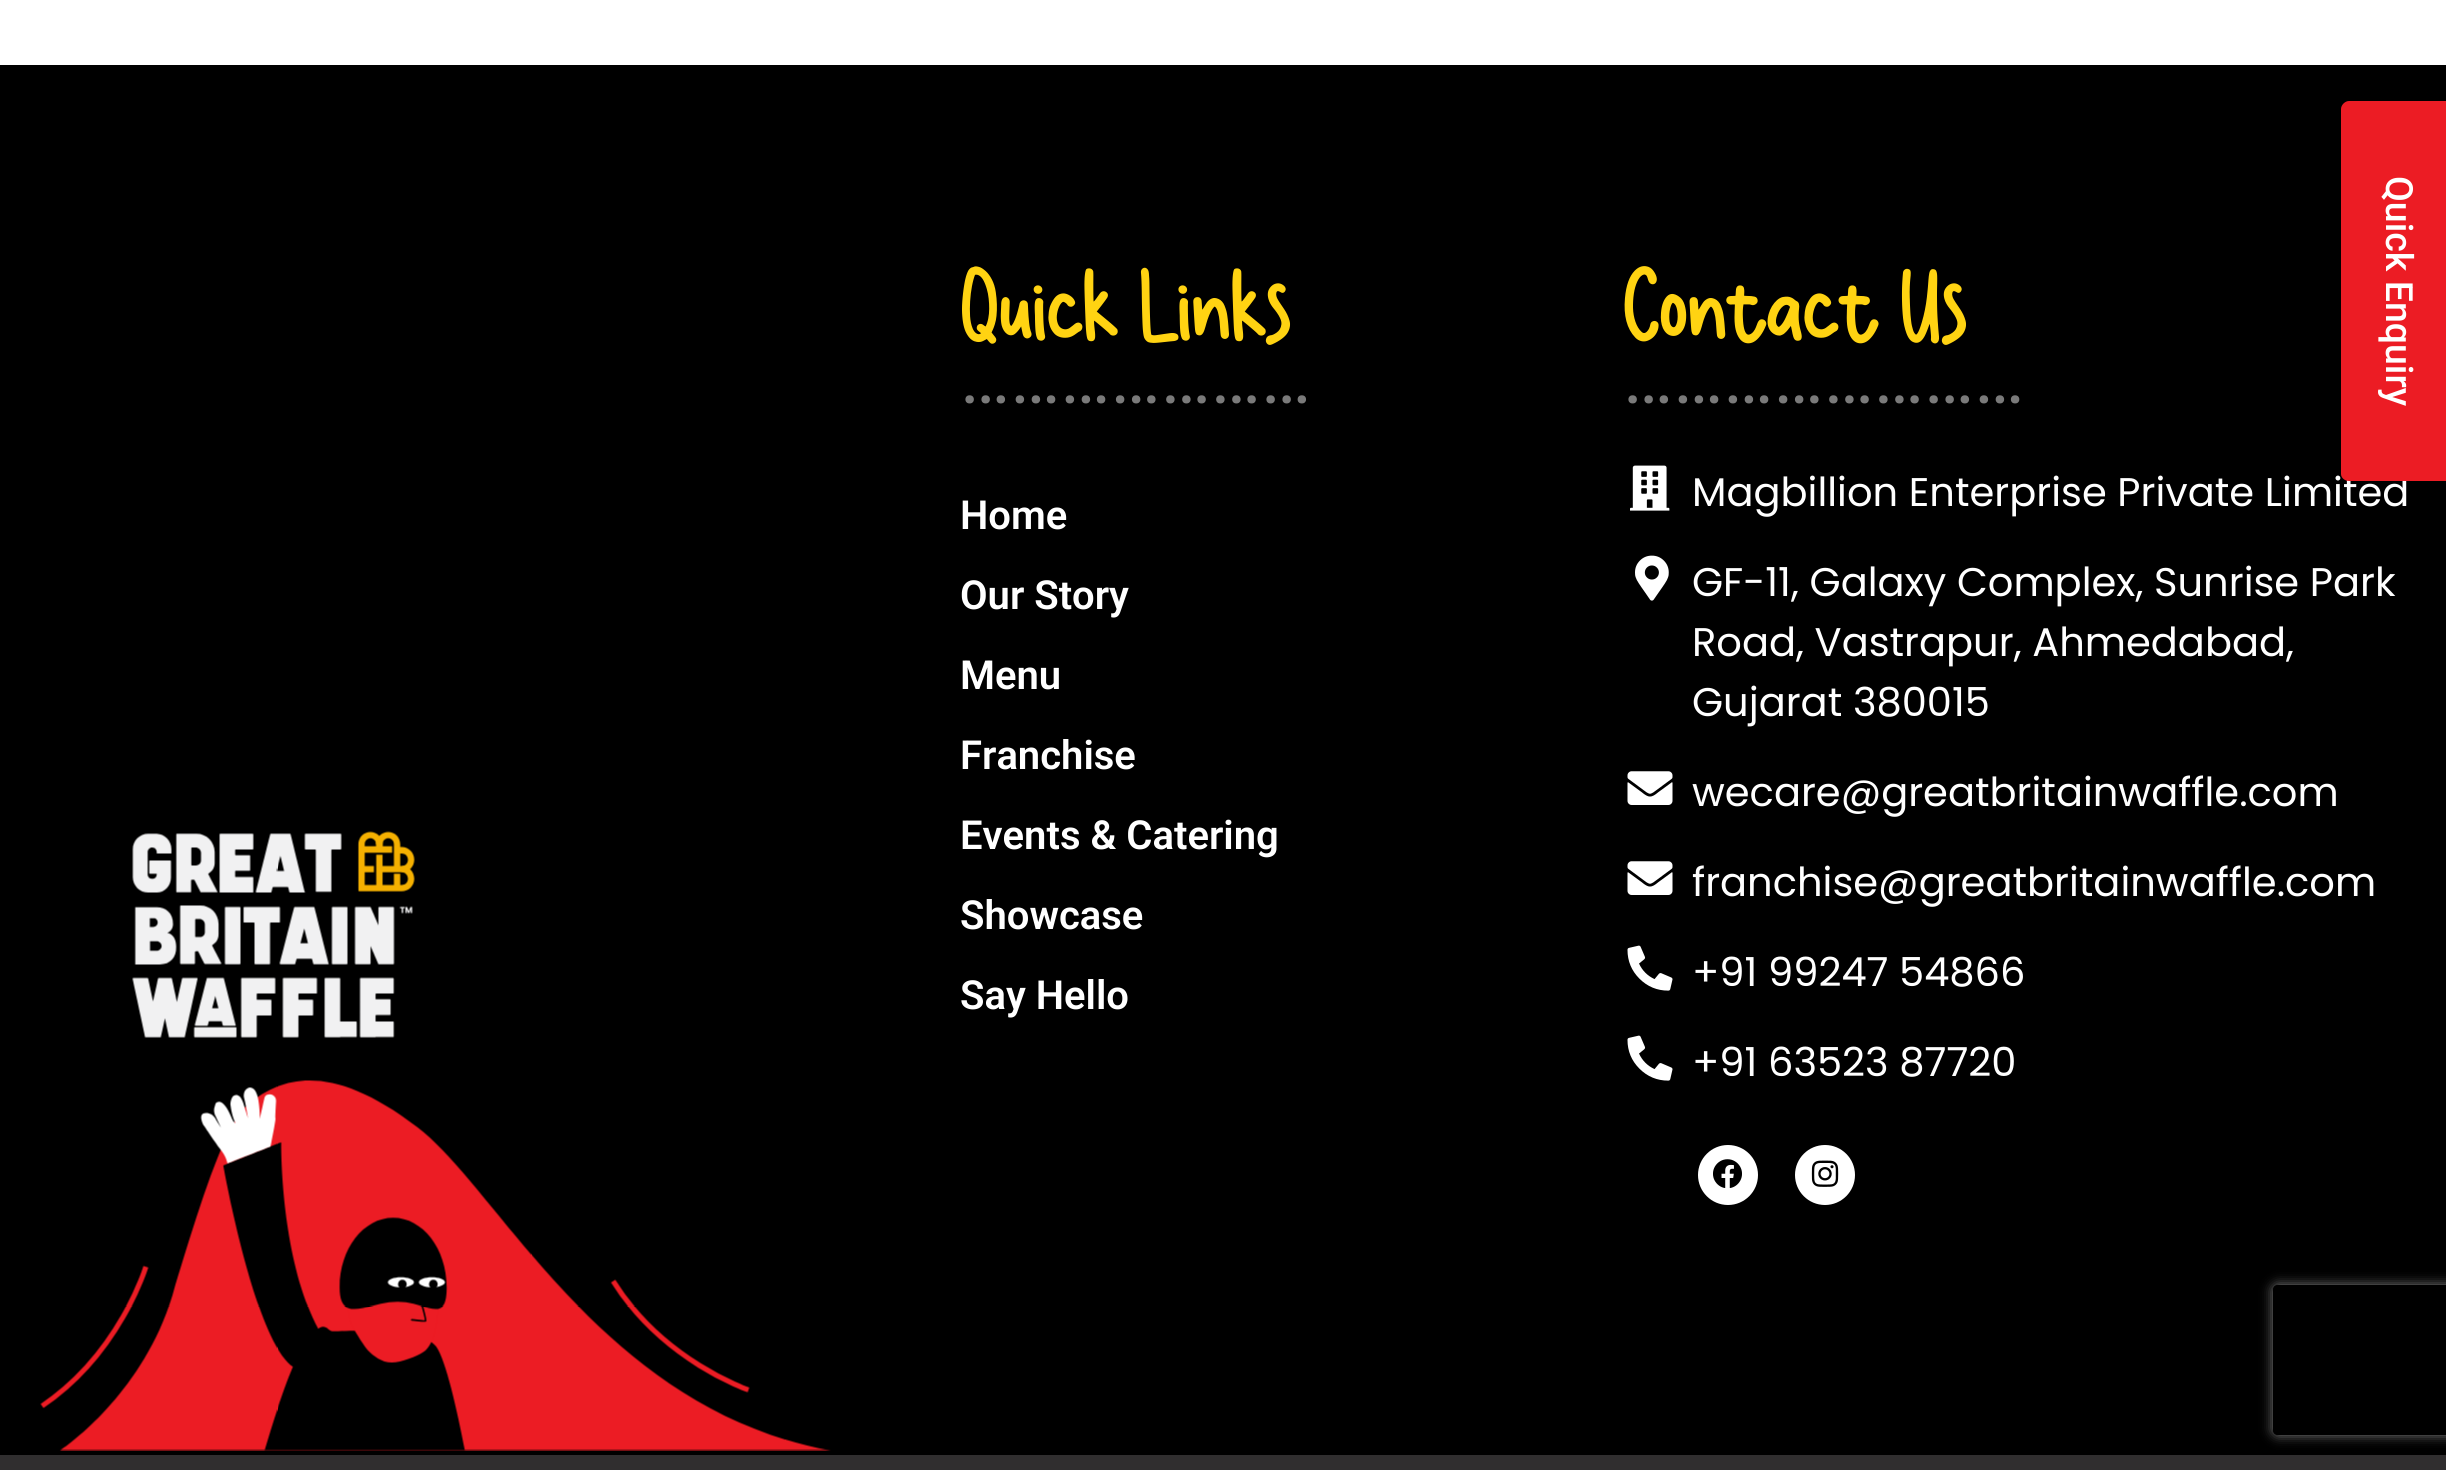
#include <cairo/cairo.h>
#include <math.h>
#include <stddef.h>


static void rounded_rect(cairo_t *cr, double x, double y, double w, double h, double r) {
  cairo_new_sub_path(cr);
  cairo_arc(cr, x + w - r, y + h - r, r, 0, M_PI / 2);
  cairo_arc(cr, x + r, y + h - r, r, M_PI / 2, M_PI);
  cairo_arc(cr, x + r, y + r, r, M_PI, 1.5 * M_PI);
  cairo_arc(cr, x + w - r, y + r, r, 1.5 * M_PI, 2 * M_PI);
  cairo_close_path(cr);
}

static void draw_shadow(cairo_t *cr, double x, double y, double w, double h, double r, double blur, double alpha) {
  cairo_push_group_with_content(cr, CAIRO_CONTENT_ALPHA);
  cairo_set_operator(cr, CAIRO_OPERATOR_SOURCE);
  for (int i = 15; i >= -15 && fmin(w, h) + blur * i / 3 > 0; i -= 2) {
    double e = blur * i / 6;
    cairo_set_source_rgba(cr, 0, 0, 0, alpha * erfc((i - 1) / 8.5) / 2);
    rounded_rect(cr, x - e, y - e, w + 2 * e, h + 2 * e, fmax(0, fmin(r + e + blur * .6, fmin(w, h) / 2 + e)));
    cairo_fill(cr);
  }
  cairo_pattern_t *soft = cairo_pop_group(cr);
  cairo_mask(cr, soft);
  cairo_pattern_destroy(soft);
}

static void draw_image(cairo_t *cr, const char *path, double x, double y, double w, double h) {
  cairo_surface_t *image = cairo_image_surface_create_from_png(path);
  cairo_save(cr);
  cairo_set_source_surface(cr, image, x, y);
  cairo_rectangle(cr, x, y, w, h);
  cairo_fill(cr);
  cairo_restore(cr);
  cairo_surface_destroy(image);
}

static void draw(cairo_t *cr) {
  cairo_set_source_rgb(cr, 1, 1, 1);
  cairo_paint(cr);
  cairo_set_source_rgb(cr, 0, 0, 0);
  cairo_rectangle(cr, 0, 65, 2446, 1390);
  cairo_fill(cr);
  draw_image(cr, "images/1.png", 1630, 465, 40, 46);
  draw_image(cr, "images/2.png", 1635, 555, 34, 46);
  draw_image(cr, "images/3.png", 1627, 771, 46, 34);
  draw_image(cr, "images/3.png", 1627, 861, 46, 34);
  draw_image(cr, "images/4.png", 1627, 945, 46, 46);
  draw_image(cr, "images/4.png", 1627, 1035, 46, 46);
  cairo_set_source_rgb(cr, 1, 1, 1);
  cairo_arc(cr, 1728, 1175, 30, 0, 2 * M_PI);
  cairo_fill(cr);
  draw_image(cr, "images/5.png", 1713, 1159, 29, 29);
  cairo_arc(cr, 1825, 1175, 30, 0, 2 * M_PI);
  cairo_fill(cr);
  draw_image(cr, "images/6.png", 1811, 1160, 28, 27);
  draw_image(cr, "images/7.png", 40, 831, 791, 620);
  cairo_set_source_rgb(cr, 48 / 255.0, 46 / 255.0, 47 / 255.0);
  cairo_rectangle(cr, 0, 1455, 2446, 15);
  cairo_fill(cr);
  cairo_save(cr);
  cairo_set_fill_rule(cr, CAIRO_FILL_RULE_EVEN_ODD);
  cairo_new_path(cr);
  cairo_move_to(cr, 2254, 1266);
  cairo_line_to(cr, 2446, 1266);
  cairo_line_to(cr, 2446, 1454);
  cairo_line_to(cr, 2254, 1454);
  cairo_close_path(cr);
  cairo_move_to(cr, 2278, 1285);
  cairo_line_to(cr, 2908, 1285);
  cairo_curve_to(cr, 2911, 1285, 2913, 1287, 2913, 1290);
  cairo_line_to(cr, 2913, 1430);
  cairo_curve_to(cr, 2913, 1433, 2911, 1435, 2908, 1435);
  cairo_line_to(cr, 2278, 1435);
  cairo_curve_to(cr, 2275, 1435, 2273, 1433, 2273, 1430);
  cairo_line_to(cr, 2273, 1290);
  cairo_curve_to(cr, 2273, 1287, 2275, 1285, 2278, 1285);
  cairo_close_path(cr);
  cairo_clip(cr);
  cairo_set_source_rgb(cr, 128 / 255.0, 128 / 255.0, 128 / 255.0);
  draw_shadow(cr, 2273, 1285, 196, 150, 5, 6, 1);
  cairo_restore(cr);
  cairo_select_font_face(cr, "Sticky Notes", CAIRO_FONT_SLANT_NORMAL, CAIRO_FONT_WEIGHT_NORMAL);
  cairo_set_font_size(cr, 105);
  cairo_set_source_rgb(cr, 1, 211 / 255.0, 18 / 255.0);
  cairo_move_to(cr, 960, 345);
  cairo_show_text(cr, "Quick Links");
  cairo_select_font_face(cr, "Roboto", CAIRO_FONT_SLANT_NORMAL, CAIRO_FONT_WEIGHT_NORMAL);
  cairo_set_font_size(cr, 75);
  cairo_set_source_rgb(cr, 122 / 255.0, 122 / 255.0, 122 / 255.0);
  cairo_move_to(cr, 960, 403);
  cairo_show_text(cr, "…………………");
  cairo_select_font_face(cr, "Roboto SemiBold", CAIRO_FONT_SLANT_NORMAL, CAIRO_FONT_WEIGHT_NORMAL);
  cairo_set_font_size(cr, 40);
  cairo_set_source_rgb(cr, 1, 1, 1);
  cairo_move_to(cr, 960, 529);
  cairo_show_text(cr, "Home");
  cairo_move_to(cr, 960, 609);
  cairo_show_text(cr, "Our Story");
  cairo_move_to(cr, 960, 689);
  cairo_show_text(cr, "Menu");
  cairo_move_to(cr, 960, 769);
  cairo_show_text(cr, "Franchise");
  cairo_move_to(cr, 960, 849);
  cairo_show_text(cr, "Events & Catering");
  cairo_move_to(cr, 960, 929);
  cairo_show_text(cr, "Showcase");
  cairo_move_to(cr, 960, 1009);
  cairo_show_text(cr, "Say Hello");
  cairo_select_font_face(cr, "Sticky Notes", CAIRO_FONT_SLANT_NORMAL, CAIRO_FONT_WEIGHT_NORMAL);
  cairo_set_font_size(cr, 105);
  cairo_set_source_rgb(cr, 1, 211 / 255.0, 18 / 255.0);
  cairo_move_to(cr, 1623, 345);
  cairo_show_text(cr, "Contact Us");
  cairo_select_font_face(cr, "Roboto", CAIRO_FONT_SLANT_NORMAL, CAIRO_FONT_WEIGHT_NORMAL);
  cairo_set_font_size(cr, 75);
  cairo_set_source_rgb(cr, 122 / 255.0, 122 / 255.0, 122 / 255.0);
  cairo_move_to(cr, 1623, 403);
  cairo_show_text(cr, "……………………");
  cairo_select_font_face(cr, "Poppins", CAIRO_FONT_SLANT_NORMAL, CAIRO_FONT_WEIGHT_NORMAL);
  cairo_set_font_size(cr, 40);
  cairo_set_source_rgb(cr, 1, 1, 1);
  cairo_move_to(cr, 1692, 506);
  cairo_show_text(cr, "Magbillion Enterprise Private Limited");
  cairo_set_source_rgb(cr, 236 / 255.0, 28 / 255.0, 36 / 255.0);
  cairo_new_path(cr);
  cairo_move_to(cr, 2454, 109);
  cairo_line_to(cr, 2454, 474);
  cairo_curve_to(cr, 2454, 478, 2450, 481, 2446, 481);
  cairo_line_to(cr, 2349, 481);
  cairo_curve_to(cr, 2345, 481, 2341, 478, 2341, 474);
  cairo_line_to(cr, 2341, 109);
  cairo_curve_to(cr, 2341, 105, 2345, 101, 2349, 101);
  cairo_line_to(cr, 2446, 101);
  cairo_curve_to(cr, 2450, 101, 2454, 105, 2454, 109);
  cairo_close_path(cr);
  cairo_fill(cr);
  cairo_select_font_face(cr, "Roboto Medium", CAIRO_FONT_SLANT_NORMAL, CAIRO_FONT_WEIGHT_NORMAL);
  cairo_set_font_size(cr, 37.5);
  cairo_set_source_rgb(cr, 1, 1, 1);
  cairo_save(cr);
  cairo_translate(cr, 2386, 176);
  cairo_rotate(cr, 90 * M_PI / 180);
  cairo_move_to(cr, 0, 0);
  cairo_show_text(cr, "Quick Enquiry");
  cairo_restore(cr);
  cairo_select_font_face(cr, "Poppins", CAIRO_FONT_SLANT_NORMAL, CAIRO_FONT_WEIGHT_NORMAL);
  cairo_set_font_size(cr, 40);
  cairo_move_to(cr, 1692, 596);
  cairo_show_text(cr, "GF-11, Galaxy Complex, Sunrise Park");
  cairo_move_to(cr, 1692, 656);
  cairo_show_text(cr, "Road, Vastrapur, Ahmedabad,");
  cairo_move_to(cr, 1692, 716);
  cairo_show_text(cr, "Gujarat 380015");
  cairo_move_to(cr, 1692, 806);
  cairo_show_text(cr, "wecare@greatbritainwaffle.com");
  cairo_move_to(cr, 1692, 896);
  cairo_show_text(cr, "franchise@greatbritainwaffle.com");
  cairo_move_to(cr, 1692, 986);
  cairo_show_text(cr, "+91 99247 54866");
  cairo_move_to(cr, 1692, 1076);
  cairo_show_text(cr, "+91 63523 87720");
}

int main(void) {
  cairo_surface_t *surface = cairo_image_surface_create(CAIRO_FORMAT_RGB24, 2446, 1470);
  cairo_t *cr = cairo_create(surface);
  cairo_font_options_t *options = cairo_font_options_create();
  cairo_font_options_set_hint_metrics(options, CAIRO_HINT_METRICS_OFF);
  cairo_font_options_set_hint_style(options, CAIRO_HINT_STYLE_NONE);
  cairo_set_font_options(cr, options);
  cairo_set_miter_limit(cr, 4);
  draw(cr);
  cairo_surface_write_to_png(surface, "out.png");
  cairo_font_options_destroy(options);
  cairo_destroy(cr);
  cairo_surface_destroy(surface);
  return 0;
}
